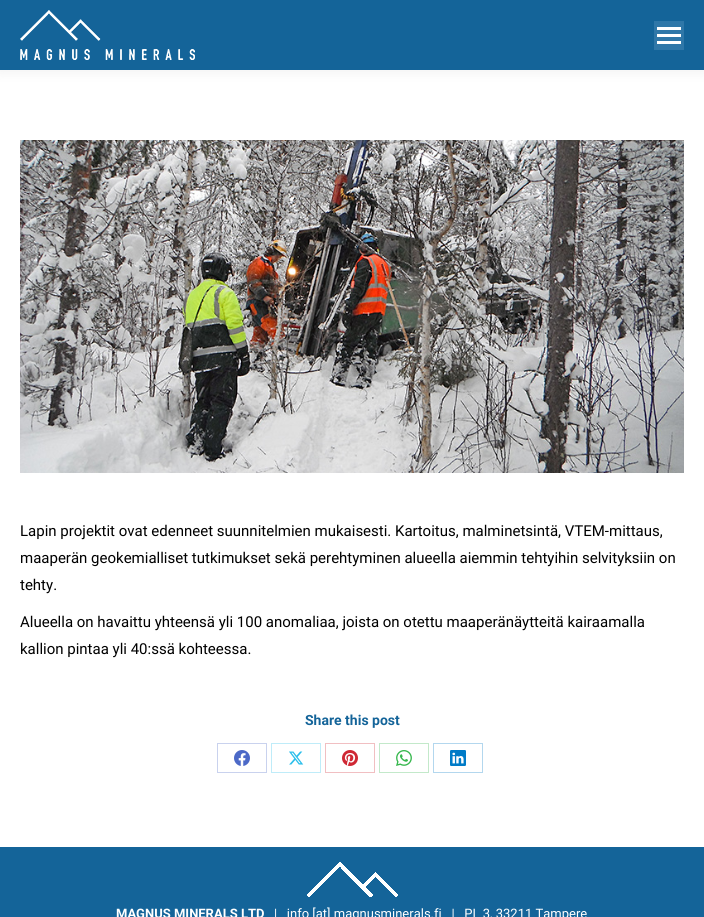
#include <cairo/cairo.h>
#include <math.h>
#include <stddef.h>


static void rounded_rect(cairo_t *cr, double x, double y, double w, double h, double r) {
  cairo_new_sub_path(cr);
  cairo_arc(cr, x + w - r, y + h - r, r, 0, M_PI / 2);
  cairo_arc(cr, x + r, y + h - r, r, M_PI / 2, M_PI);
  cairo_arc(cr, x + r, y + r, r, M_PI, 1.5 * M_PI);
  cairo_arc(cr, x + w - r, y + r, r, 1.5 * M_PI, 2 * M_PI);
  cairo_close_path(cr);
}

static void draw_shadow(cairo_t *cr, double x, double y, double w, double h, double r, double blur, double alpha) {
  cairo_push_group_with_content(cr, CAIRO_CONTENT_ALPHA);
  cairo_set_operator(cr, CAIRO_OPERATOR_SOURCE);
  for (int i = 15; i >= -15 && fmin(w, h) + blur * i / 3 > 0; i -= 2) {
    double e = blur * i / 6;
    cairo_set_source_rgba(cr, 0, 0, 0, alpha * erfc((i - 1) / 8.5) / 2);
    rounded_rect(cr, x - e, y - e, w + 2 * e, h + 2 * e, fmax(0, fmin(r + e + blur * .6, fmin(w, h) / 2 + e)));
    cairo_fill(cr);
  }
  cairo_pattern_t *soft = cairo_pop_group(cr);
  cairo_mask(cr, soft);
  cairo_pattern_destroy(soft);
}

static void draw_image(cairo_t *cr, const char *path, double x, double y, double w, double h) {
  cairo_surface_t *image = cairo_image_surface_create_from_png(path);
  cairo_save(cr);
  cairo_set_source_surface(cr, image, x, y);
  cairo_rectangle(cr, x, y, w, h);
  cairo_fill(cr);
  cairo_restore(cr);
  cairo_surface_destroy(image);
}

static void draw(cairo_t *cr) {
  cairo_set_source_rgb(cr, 1, 1, 1);
  cairo_paint(cr);
  cairo_set_source_rgb(cr, 0, 0, 0);
  draw_shadow(cr, -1, -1, 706, 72, 0, 7.5, 0.07);
  cairo_set_source_rgb(cr, 20 / 255.0, 100 / 255.0, 153 / 255.0);
  cairo_rectangle(cr, 0, 0, 704, 70);
  cairo_fill(cr);
  draw_image(cr, "images/1.png", 20, 10, 175, 50);
  cairo_set_source_rgb(cr, 47 / 255.0, 119 / 255.0, 168 / 255.0);
  cairo_rectangle(cr, 654, 21, 30, 29);
  cairo_fill(cr);
  cairo_set_source_rgb(cr, 1, 1, 1);
  cairo_rectangle(cr, 657, 27, 24, 3);
  cairo_fill(cr);
  cairo_rectangle(cr, 657, 34, 24, 3);
  cairo_fill(cr);
  cairo_rectangle(cr, 657, 41, 24, 3);
  cairo_fill(cr);
  draw_image(cr, "images/2.png", 20, 140, 664, 333);
  cairo_rectangle(cr, 217.5, 743.5, 49, 29);
  cairo_set_source_rgb(cr, 201 / 255.0, 210 / 255.0, 238 / 255.0);
  cairo_set_line_width(cr, 1);
  cairo_stroke(cr);
  draw_image(cr, "images/3.png", 234, 750, 16, 16);
  cairo_rectangle(cr, 271.5, 743.5, 49, 29);
  cairo_set_source_rgb(cr, 191 / 255.0, 236 / 255.0, 249 / 255.0);
  cairo_stroke(cr);
  draw_image(cr, "images/4.png", 289, 751, 15, 14);
  cairo_rectangle(cr, 325.5, 743.5, 49, 29);
  cairo_set_source_rgb(cr, 241 / 255.0, 191 / 255.0, 194 / 255.0);
  cairo_stroke(cr);
  draw_image(cr, "images/5.png", 342, 750, 16, 16);
  cairo_rectangle(cr, 379.5, 743.5, 49, 29);
  cairo_set_source_rgb(cr, 195 / 255.0, 233 / 255.0, 202 / 255.0);
  cairo_stroke(cr);
  draw_image(cr, "images/6.png", 396, 750, 16, 16);
  cairo_rectangle(cr, 433.5, 743.5, 49, 29);
  cairo_set_source_rgb(cr, 179 / 255.0, 215 / 255.0, 238 / 255.0);
  cairo_stroke(cr);
  draw_image(cr, "images/7.png", 450, 750, 16, 16);
  cairo_set_source_rgb(cr, 20 / 255.0, 100 / 255.0, 153 / 255.0);
  cairo_rectangle(cr, 0, 847, 704, 70);
  cairo_fill(cr);
  draw_image(cr, "images/8.png", 307, 862, 91, 35);
  cairo_select_font_face(cr, "Roboto", CAIRO_FONT_SLANT_NORMAL, CAIRO_FONT_WEIGHT_NORMAL);
  cairo_set_font_size(cr, 15);
  cairo_set_source_rgb(cr, 0, 0, 0);
  cairo_move_to(cr, 20, 536);
  cairo_show_text(cr, "Lapin projektit ovat edenneet suunnitelmien mukaisesti. Kartoitus, malminetsintä, VTEM-mittaus,");
  cairo_move_to(cr, 20, 563);
  cairo_show_text(cr, "maaperän geokemialliset tutkimukset sekä perehtyminen alueella aiemmin tehtyihin selvityksiin on");
  cairo_move_to(cr, 20, 590);
  cairo_show_text(cr, "tehty.");
  cairo_move_to(cr, 20, 627);
  cairo_show_text(cr, "Alueella on havaittu yhteensä yli 100 anomaliaa, joista on otettu maaperänäytteitä kairaamalla");
  cairo_move_to(cr, 20, 654);
  cairo_show_text(cr, "kallion pintaa yli 40:ssä kohteessa.");
  cairo_select_font_face(cr, "Roboto", CAIRO_FONT_SLANT_NORMAL, CAIRO_FONT_WEIGHT_BOLD);
  cairo_set_font_size(cr, 14);
  cairo_set_source_rgb(cr, 20 / 255.0, 100 / 255.0, 153 / 255.0);
  cairo_move_to(cr, 305, 725);
  cairo_show_text(cr, "Share this post");
  cairo_set_font_size(cr, 13);
  cairo_set_source_rgb(cr, 1, 1, 1);
  cairo_move_to(cr, 116, 918);
  cairo_show_text(cr, "MAGNUS MINERALS LTD");
  cairo_select_font_face(cr, "Roboto", CAIRO_FONT_SLANT_NORMAL, CAIRO_FONT_WEIGHT_NORMAL);
  cairo_move_to(cr, 274, 918);
  cairo_show_text(cr, "|   info [at] magnusminerals.fi   |   PL 3, 33211 Tampere");
}

int main(void) {
  cairo_surface_t *surface = cairo_image_surface_create(CAIRO_FORMAT_RGB24, 704, 917);
  cairo_t *cr = cairo_create(surface);
  cairo_font_options_t *options = cairo_font_options_create();
  cairo_font_options_set_hint_metrics(options, CAIRO_HINT_METRICS_OFF);
  cairo_font_options_set_hint_style(options, CAIRO_HINT_STYLE_NONE);
  cairo_set_font_options(cr, options);
  cairo_set_miter_limit(cr, 4);
  draw(cr);
  cairo_surface_write_to_png(surface, "out.png");
  cairo_font_options_destroy(options);
  cairo_destroy(cr);
  cairo_surface_destroy(surface);
  return 0;
}
